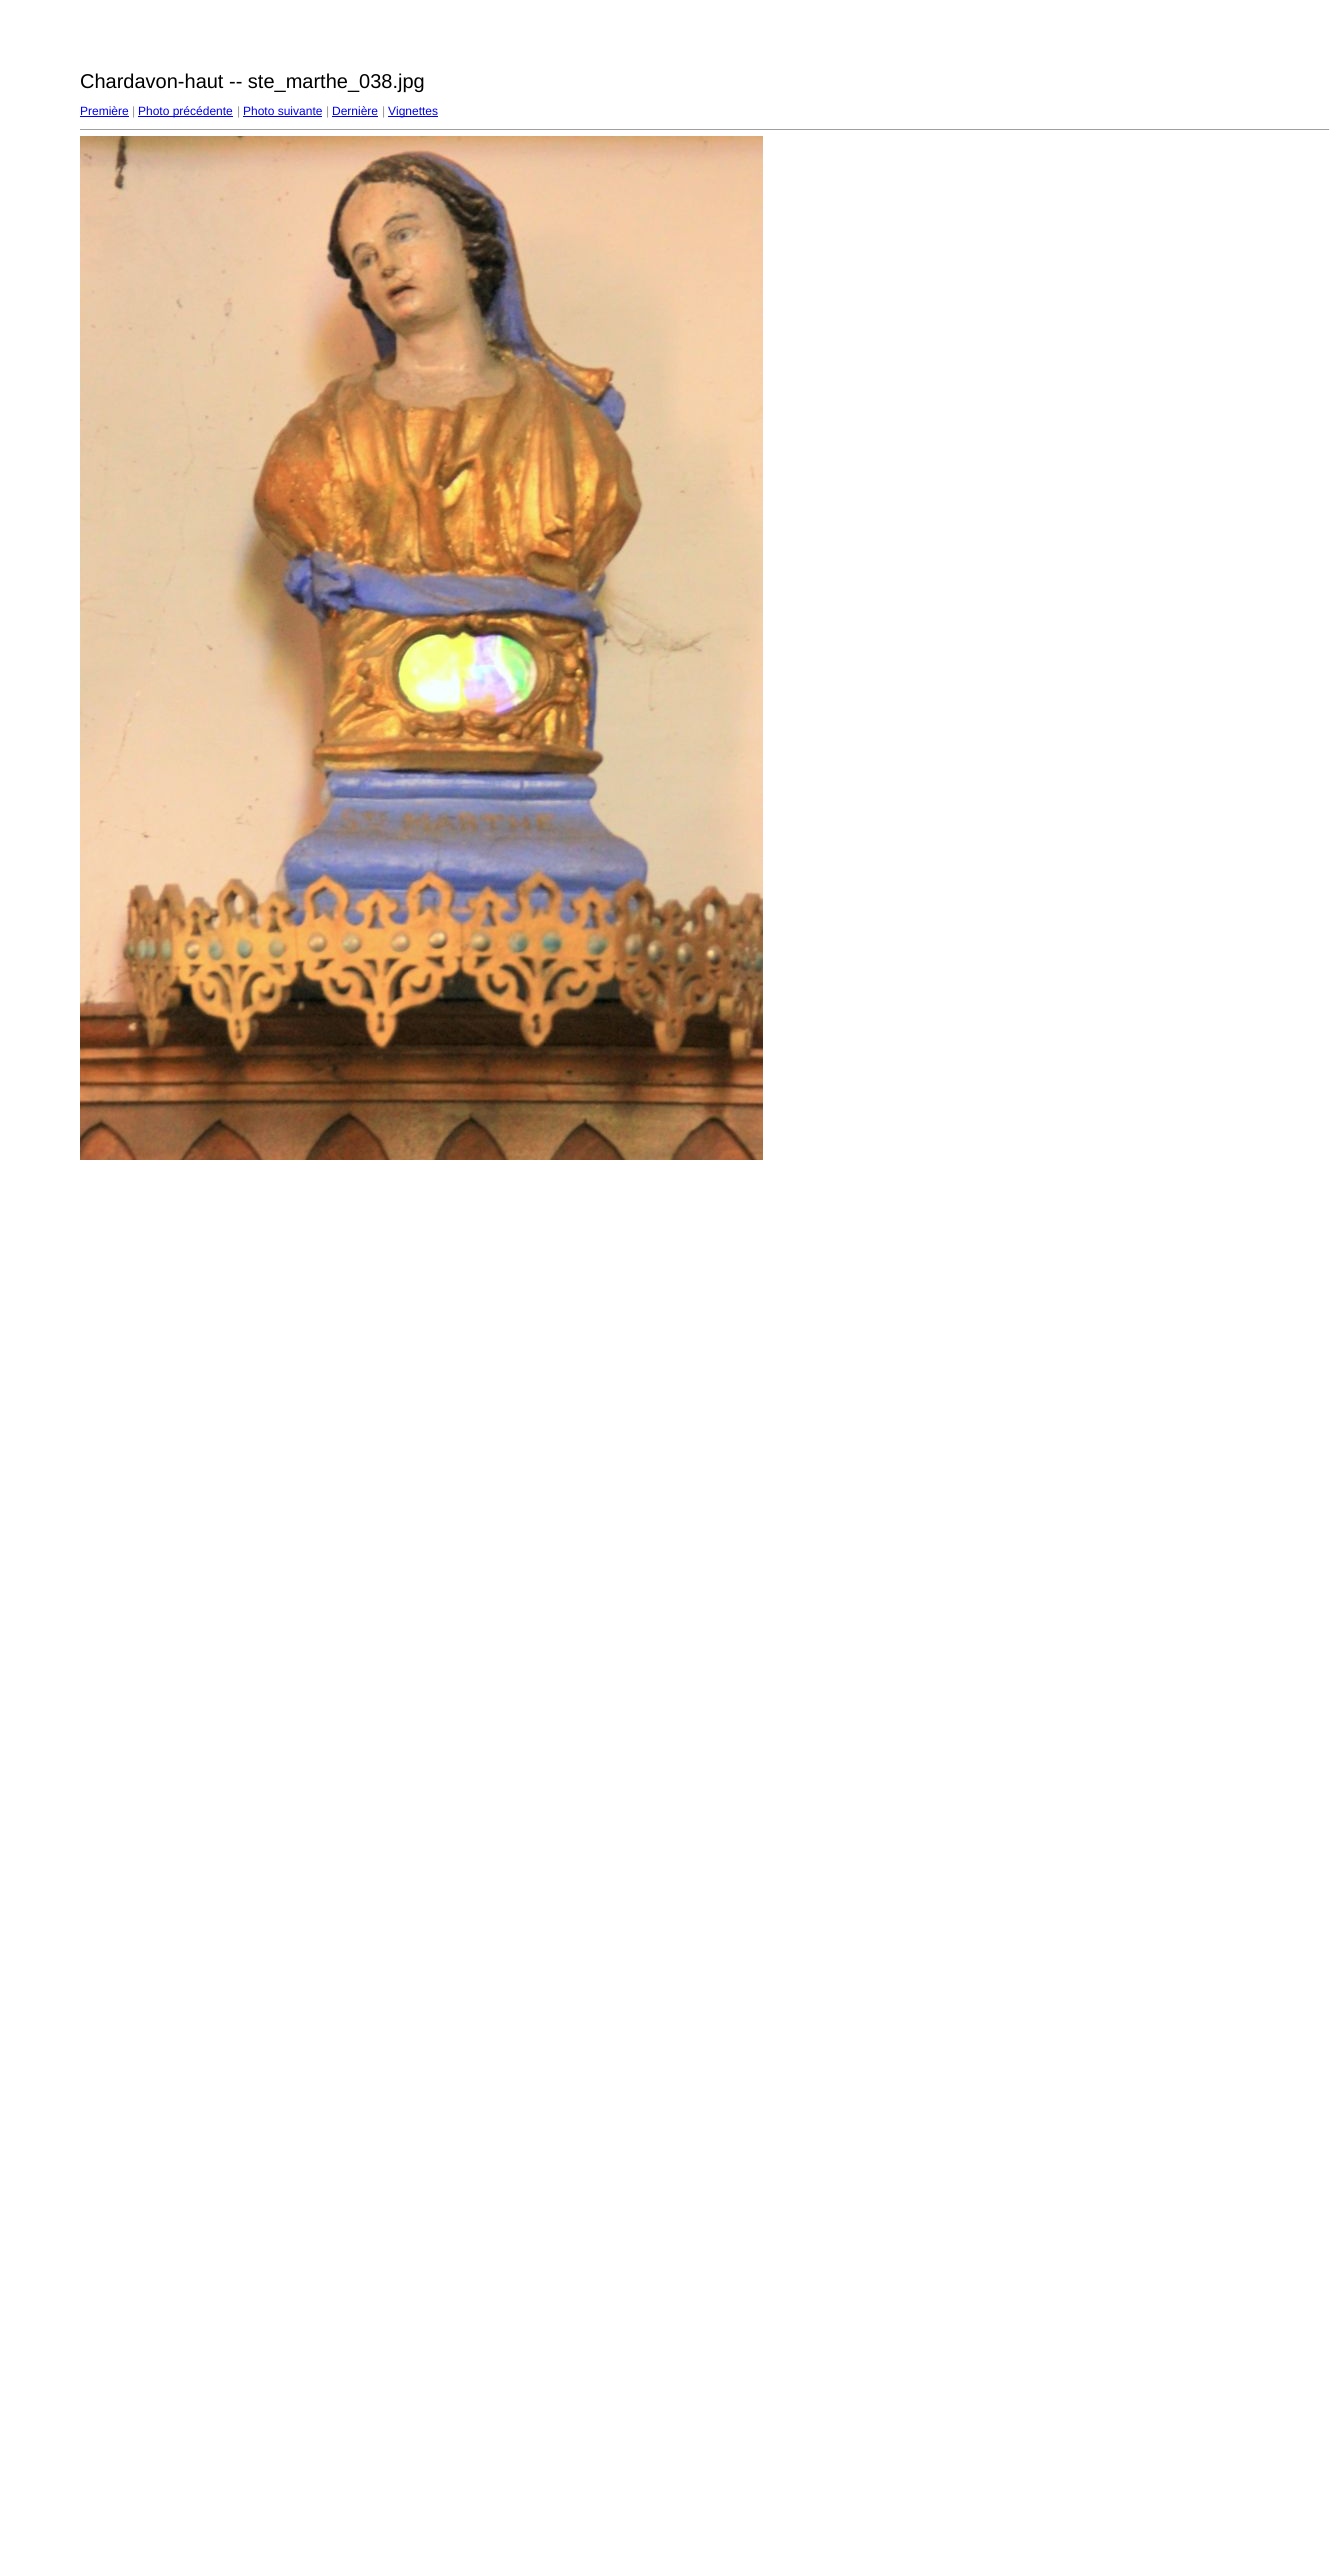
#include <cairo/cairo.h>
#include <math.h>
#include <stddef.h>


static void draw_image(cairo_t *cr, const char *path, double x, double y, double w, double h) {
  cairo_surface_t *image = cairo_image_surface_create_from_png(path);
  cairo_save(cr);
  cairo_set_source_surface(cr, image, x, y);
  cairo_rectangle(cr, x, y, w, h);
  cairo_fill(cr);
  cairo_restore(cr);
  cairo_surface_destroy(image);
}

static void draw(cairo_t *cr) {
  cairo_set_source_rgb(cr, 1, 1, 1);
  cairo_paint(cr);
  cairo_set_source_rgb(cr, 0, 0, 238 / 255.0);
  cairo_rectangle(cr, 80, 116, 49, 1);
  cairo_fill(cr);
  cairo_rectangle(cr, 138, 116, 95, 1);
  cairo_fill(cr);
  cairo_rectangle(cr, 243, 116, 79, 1);
  cairo_fill(cr);
  cairo_rectangle(cr, 332, 116, 46, 1);
  cairo_fill(cr);
  cairo_rectangle(cr, 388, 116, 50, 1);
  cairo_fill(cr);
  cairo_set_source_rgb(cr, 159 / 255.0, 159 / 255.0, 159 / 255.0);
  cairo_rectangle(cr, 80, 129, 1250, 1);
  cairo_fill(cr);
  cairo_set_source_rgb(cr, 238 / 255.0, 238 / 255.0, 238 / 255.0);
  cairo_rectangle(cr, 1329, 129, 1, 1);
  cairo_fill(cr);
  draw_image(cr, "images/1.png", 80, 136, 683, 1024);
  cairo_select_font_face(cr, "Liberation Sans", CAIRO_FONT_SLANT_NORMAL, CAIRO_FONT_WEIGHT_NORMAL);
  cairo_set_font_size(cr, 20);
  cairo_set_source_rgb(cr, 0, 0, 0);
  cairo_move_to(cr, 80, 88);
  cairo_show_text(cr, "Chardavon-haut -- ste_marthe_038.jpg");
  cairo_set_font_size(cr, 12);
  cairo_set_source_rgb(cr, 0, 0, 238 / 255.0);
  cairo_move_to(cr, 80, 115);
  cairo_show_text(cr, "Première");
  cairo_set_source_rgb(cr, 151 / 255.0, 151 / 255.0, 151 / 255.0);
  cairo_move_to(cr, 132, 115);
  cairo_show_text(cr, "|");
  cairo_set_source_rgb(cr, 0, 0, 238 / 255.0);
  cairo_move_to(cr, 138, 115);
  cairo_show_text(cr, "Photo précédente");
  cairo_set_source_rgb(cr, 151 / 255.0, 151 / 255.0, 151 / 255.0);
  cairo_move_to(cr, 237, 115);
  cairo_show_text(cr, "|");
  cairo_set_source_rgb(cr, 0, 0, 238 / 255.0);
  cairo_move_to(cr, 243, 115);
  cairo_show_text(cr, "Photo suivante");
  cairo_set_source_rgb(cr, 151 / 255.0, 151 / 255.0, 151 / 255.0);
  cairo_move_to(cr, 326, 115);
  cairo_show_text(cr, "|");
  cairo_set_source_rgb(cr, 0, 0, 238 / 255.0);
  cairo_move_to(cr, 332, 115);
  cairo_show_text(cr, "Dernière");
  cairo_set_source_rgb(cr, 151 / 255.0, 151 / 255.0, 151 / 255.0);
  cairo_move_to(cr, 382, 115);
  cairo_show_text(cr, "|");
  cairo_set_source_rgb(cr, 0, 0, 238 / 255.0);
  cairo_move_to(cr, 388, 115);
  cairo_show_text(cr, "Vignettes");
}

int main(void) {
  cairo_surface_t *surface = cairo_image_surface_create(CAIRO_FORMAT_RGB24, 1338, 2564);
  cairo_t *cr = cairo_create(surface);
  cairo_font_options_t *options = cairo_font_options_create();
  cairo_font_options_set_hint_metrics(options, CAIRO_HINT_METRICS_OFF);
  cairo_font_options_set_hint_style(options, CAIRO_HINT_STYLE_NONE);
  cairo_set_font_options(cr, options);
  cairo_set_miter_limit(cr, 4);
  draw(cr);
  cairo_surface_write_to_png(surface, "out.png");
  cairo_font_options_destroy(options);
  cairo_destroy(cr);
  cairo_surface_destroy(surface);
  return 0;
}
